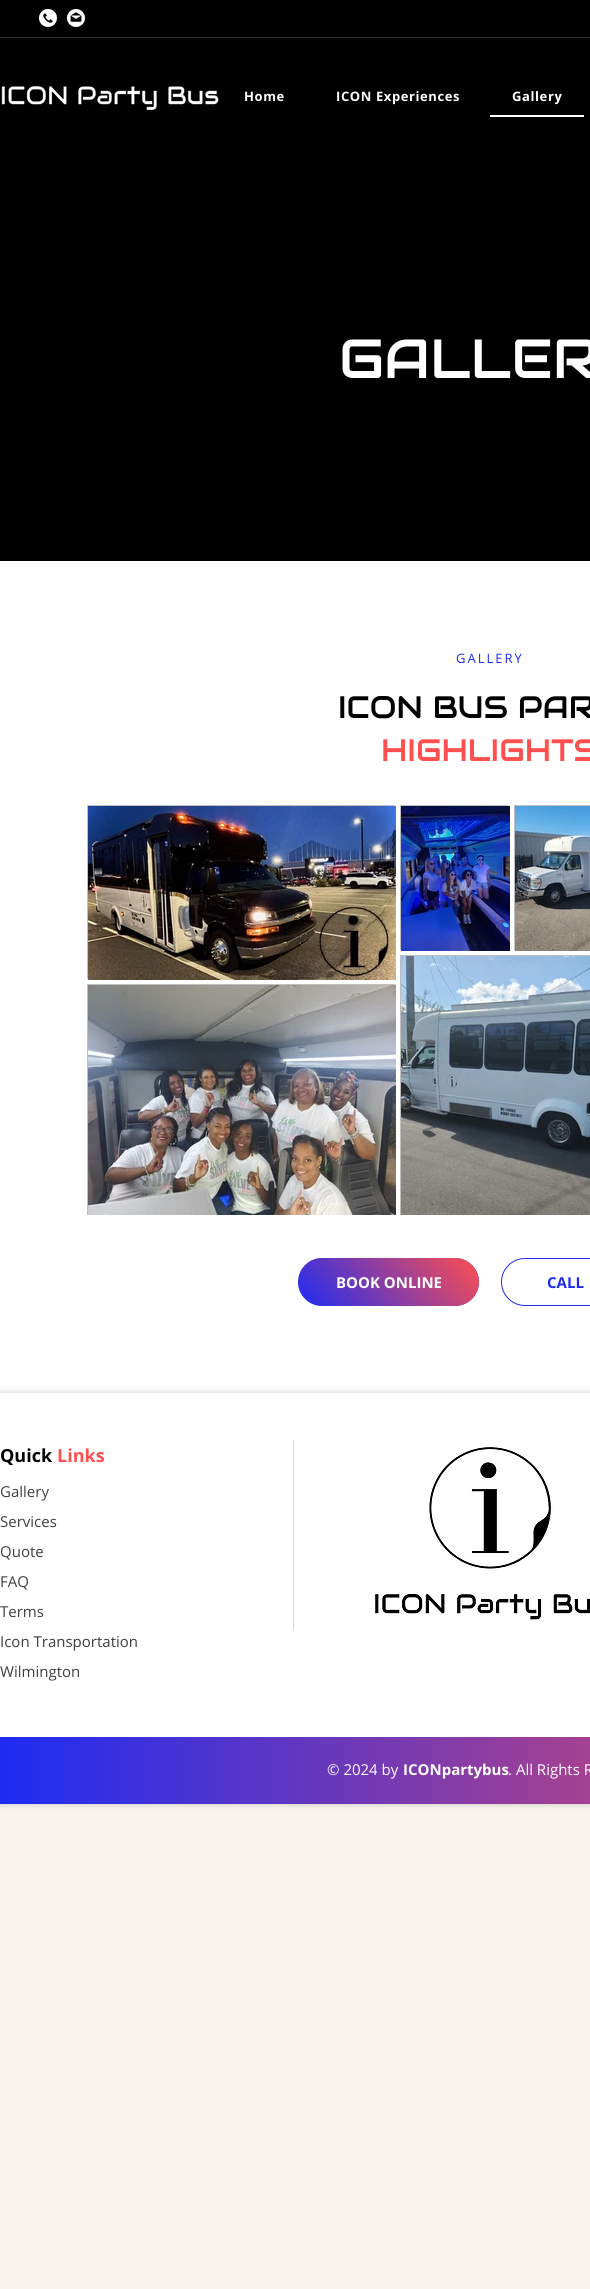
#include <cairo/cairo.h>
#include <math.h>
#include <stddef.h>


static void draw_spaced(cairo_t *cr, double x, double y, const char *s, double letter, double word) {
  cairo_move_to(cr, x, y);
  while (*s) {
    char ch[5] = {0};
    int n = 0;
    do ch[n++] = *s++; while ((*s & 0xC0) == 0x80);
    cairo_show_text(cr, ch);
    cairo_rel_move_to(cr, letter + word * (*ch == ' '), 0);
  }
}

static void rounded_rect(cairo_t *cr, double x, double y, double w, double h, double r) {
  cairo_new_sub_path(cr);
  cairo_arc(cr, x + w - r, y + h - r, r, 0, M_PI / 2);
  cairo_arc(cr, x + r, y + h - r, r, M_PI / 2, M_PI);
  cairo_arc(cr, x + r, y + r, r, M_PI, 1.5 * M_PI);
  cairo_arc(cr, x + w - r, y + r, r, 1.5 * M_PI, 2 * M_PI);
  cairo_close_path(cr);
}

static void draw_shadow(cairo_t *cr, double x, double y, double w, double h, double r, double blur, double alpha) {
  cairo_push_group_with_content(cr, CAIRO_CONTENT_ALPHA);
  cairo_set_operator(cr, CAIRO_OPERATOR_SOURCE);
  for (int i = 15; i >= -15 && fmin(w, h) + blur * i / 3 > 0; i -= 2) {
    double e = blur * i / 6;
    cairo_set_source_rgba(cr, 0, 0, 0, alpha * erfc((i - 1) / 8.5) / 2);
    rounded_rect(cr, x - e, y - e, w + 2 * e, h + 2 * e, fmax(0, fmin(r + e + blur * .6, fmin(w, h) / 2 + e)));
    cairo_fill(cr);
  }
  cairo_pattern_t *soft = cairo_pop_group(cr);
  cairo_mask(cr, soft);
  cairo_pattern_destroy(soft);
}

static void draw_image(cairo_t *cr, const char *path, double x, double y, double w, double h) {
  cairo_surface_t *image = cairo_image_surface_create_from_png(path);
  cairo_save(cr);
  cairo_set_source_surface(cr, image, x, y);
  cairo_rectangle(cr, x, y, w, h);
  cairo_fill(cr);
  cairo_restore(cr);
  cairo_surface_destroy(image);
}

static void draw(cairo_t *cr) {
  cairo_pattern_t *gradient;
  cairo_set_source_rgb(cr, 248 / 255.0, 243 / 255.0, 236 / 255.0);
  cairo_paint(cr);
  cairo_set_source_rgb(cr, 0, 0, 0);
  cairo_rectangle(cr, 0, 0, 590, 561);
  cairo_fill(cr);
  draw_image(cr, "images/1.png", 39, 9, 18, 18);
  draw_image(cr, "images/2.png", 67, 9, 18, 18);
  cairo_set_source_rgb(cr, 48 / 255.0, 48 / 255.0, 48 / 255.0);
  cairo_rectangle(cr, 0, 37, 590, 1);
  cairo_fill(cr);
  draw_image(cr, "images/3.png", 1, 86, 218, 24);
  cairo_set_source_rgb(cr, 1, 1, 1);
  cairo_rectangle(cr, 490, 115, 94, 2);
  cairo_fill(cr);
  cairo_rectangle(cr, 0, 561, 590, 832);
  cairo_fill(cr);
  cairo_set_source_rgb(cr, 191 / 255.0, 191 / 255.0, 191 / 255.0);
  cairo_rectangle(cr, 87, 805, 308, 174);
  cairo_fill(cr);
  draw_image(cr, "images/4.png", 88, 806, 308, 174);
  cairo_rectangle(cr, 87, 984, 308, 231);
  cairo_fill(cr);
  draw_image(cr, "images/5.png", 88, 985, 308, 230);
  cairo_rectangle(cr, 400, 805, 109, 145);
  cairo_fill(cr);
  draw_image(cr, "images/6.png", 401, 806, 109, 145);
  cairo_rectangle(cr, 514, 805, 76, 145);
  cairo_fill(cr);
  draw_image(cr, "images/7.png", 515, 806, 75, 145);
  cairo_rectangle(cr, 400, 955, 190, 260);
  cairo_fill(cr);
  draw_image(cr, "images/8.png", 401, 956, 189, 259);
  cairo_set_source_rgb(cr, 29 / 255.0, 44 / 255.0, 243 / 255.0);
  rounded_rect(cr, 298, 1258, 181, 48, 24);
  cairo_fill(cr);
  gradient = cairo_pattern_create_linear(452, 1227, 325, 1337);
  cairo_pattern_add_color_stop_rgba(gradient, 0, 1, 79 / 255.0, 79 / 255.0, 1);
  cairo_pattern_add_color_stop_rgba(gradient, 1, 1, 79 / 255.0, 79 / 255.0, 0);
  cairo_set_source(cr, gradient);
  cairo_pattern_destroy(gradient);
  rounded_rect(cr, 298, 1258, 181, 48, 24);
  cairo_fill(cr);
  rounded_rect(cr, 501.5, 1258.5, 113, 47, 23.5);
  cairo_set_source_rgb(cr, 29 / 255.0, 44 / 255.0, 243 / 255.0);
  cairo_set_line_width(cr, 1);
  cairo_stroke(cr);
  cairo_set_source_rgb(cr, 0, 0, 0);
  draw_shadow(cr, 0, 1393, 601, 411, 0, 3.5, 0.19);
  cairo_set_source_rgb(cr, 1, 1, 1);
  cairo_rectangle(cr, 0, 1393, 590, 344);
  cairo_fill(cr);
  cairo_set_source_rgb(cr, 1, 200 / 255.0, 200 / 255.0);
  cairo_rectangle(cr, 293, 1440, 1, 190);
  cairo_fill(cr);
  draw_image(cr, "images/9.png", 375, 1447, 215, 175);
  gradient = cairo_pattern_create_linear(0, 1771, 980, 1771);
  cairo_pattern_add_color_stop_rgba(gradient, 0, 29 / 255.0, 44 / 255.0, 243 / 255.0, 1);
  cairo_pattern_add_color_stop_rgba(gradient, 1, 1, 79 / 255.0, 79 / 255.0, 1);
  cairo_set_source(cr, gradient);
  cairo_pattern_destroy(gradient);
  cairo_rectangle(cr, 0, 1737, 590, 67);
  cairo_fill(cr);
  cairo_select_font_face(cr, "Open Sans", CAIRO_FONT_SLANT_NORMAL, CAIRO_FONT_WEIGHT_BOLD);
  cairo_set_font_size(cr, 13);
  cairo_set_source_rgb(cr, 1, 1, 1);
  draw_spaced(cr, 244, 101, "Home", 0.6, 0);
  draw_spaced(cr, 336, 101, "ICON Experiences", 0.6, 0);
  draw_spaced(cr, 512, 101, "Gallery", 0.6, 0);
  cairo_select_font_face(cr, "Audiowide", CAIRO_FONT_SLANT_NORMAL, CAIRO_FONT_WEIGHT_NORMAL);
  cairo_set_font_size(cr, 55);
  cairo_move_to(cr, 339, 378);
  cairo_show_text(cr, "GALLER");
  cairo_select_font_face(cr, "Open Sans", CAIRO_FONT_SLANT_NORMAL, CAIRO_FONT_WEIGHT_NORMAL);
  cairo_set_font_size(cr, 13);
  cairo_set_source_rgb(cr, 29 / 255.0, 44 / 255.0, 243 / 255.0);
  draw_spaced(cr, 456, 663, "GALLERY", 2, 0);
  cairo_select_font_face(cr, "Audiowide", CAIRO_FONT_SLANT_NORMAL, CAIRO_FONT_WEIGHT_NORMAL);
  cairo_set_font_size(cr, 31);
  cairo_set_source_rgb(cr, 0, 0, 0);
  cairo_move_to(cr, 338, 718);
  cairo_show_text(cr, "ICON BUS PAR");
  cairo_set_source_rgb(cr, 1, 79 / 255.0, 79 / 255.0);
  cairo_move_to(cr, 381, 761);
  cairo_show_text(cr, "HIGHLIGHTS");
  cairo_select_font_face(cr, "Open Sans", CAIRO_FONT_SLANT_NORMAL, CAIRO_FONT_WEIGHT_BOLD);
  cairo_set_font_size(cr, 15);
  cairo_set_source_rgb(cr, 1, 1, 1);
  cairo_move_to(cr, 336, 1288);
  cairo_show_text(cr, "BOOK ONLINE");
  cairo_set_source_rgb(cr, 29 / 255.0, 44 / 255.0, 243 / 255.0);
  cairo_move_to(cr, 547, 1288);
  cairo_show_text(cr, "CALL");
  cairo_set_font_size(cr, 18);
  cairo_set_source_rgb(cr, 0, 0, 0);
  cairo_move_to(cr, 0, 1462);
  cairo_show_text(cr, "Quick");
  cairo_set_source_rgb(cr, 1, 79 / 255.0, 79 / 255.0);
  cairo_move_to(cr, 57, 1462);
  cairo_show_text(cr, "Links");
  cairo_select_font_face(cr, "Open Sans", CAIRO_FONT_SLANT_NORMAL, CAIRO_FONT_WEIGHT_NORMAL);
  cairo_set_font_size(cr, 15);
  cairo_set_source_rgb(cr, 64 / 255.0, 64 / 255.0, 64 / 255.0);
  cairo_move_to(cr, 0, 1497);
  cairo_show_text(cr, "Gallery");
  cairo_move_to(cr, 0, 1527);
  cairo_show_text(cr, "Services");
  cairo_move_to(cr, 0, 1557);
  cairo_show_text(cr, "Quote");
  cairo_move_to(cr, 0, 1587);
  cairo_show_text(cr, "FAQ");
  cairo_move_to(cr, 0, 1617);
  cairo_show_text(cr, "Terms");
  cairo_move_to(cr, 0, 1647);
  cairo_show_text(cr, "Icon Transportation");
  cairo_move_to(cr, 0, 1677);
  cairo_show_text(cr, "Wilmington");
  cairo_set_source_rgb(cr, 1, 1, 1);
  cairo_move_to(cr, 327, 1775);
  cairo_show_text(cr, "© 2024 by");
  cairo_select_font_face(cr, "Open Sans", CAIRO_FONT_SLANT_NORMAL, CAIRO_FONT_WEIGHT_BOLD);
  cairo_move_to(cr, 403, 1775);
  cairo_show_text(cr, "ICONpartybus");
  cairo_select_font_face(cr, "Open Sans", CAIRO_FONT_SLANT_NORMAL, CAIRO_FONT_WEIGHT_NORMAL);
  cairo_move_to(cr, 508, 1775);
  cairo_show_text(cr, ". All Rights R");
}

int main(void) {
  cairo_surface_t *surface = cairo_image_surface_create(CAIRO_FORMAT_RGB24, 590, 2289);
  cairo_t *cr = cairo_create(surface);
  cairo_font_options_t *options = cairo_font_options_create();
  cairo_font_options_set_hint_metrics(options, CAIRO_HINT_METRICS_OFF);
  cairo_font_options_set_hint_style(options, CAIRO_HINT_STYLE_NONE);
  cairo_set_font_options(cr, options);
  cairo_set_miter_limit(cr, 4);
  draw(cr);
  cairo_surface_write_to_png(surface, "out.png");
  cairo_font_options_destroy(options);
  cairo_destroy(cr);
  cairo_surface_destroy(surface);
  return 0;
}
